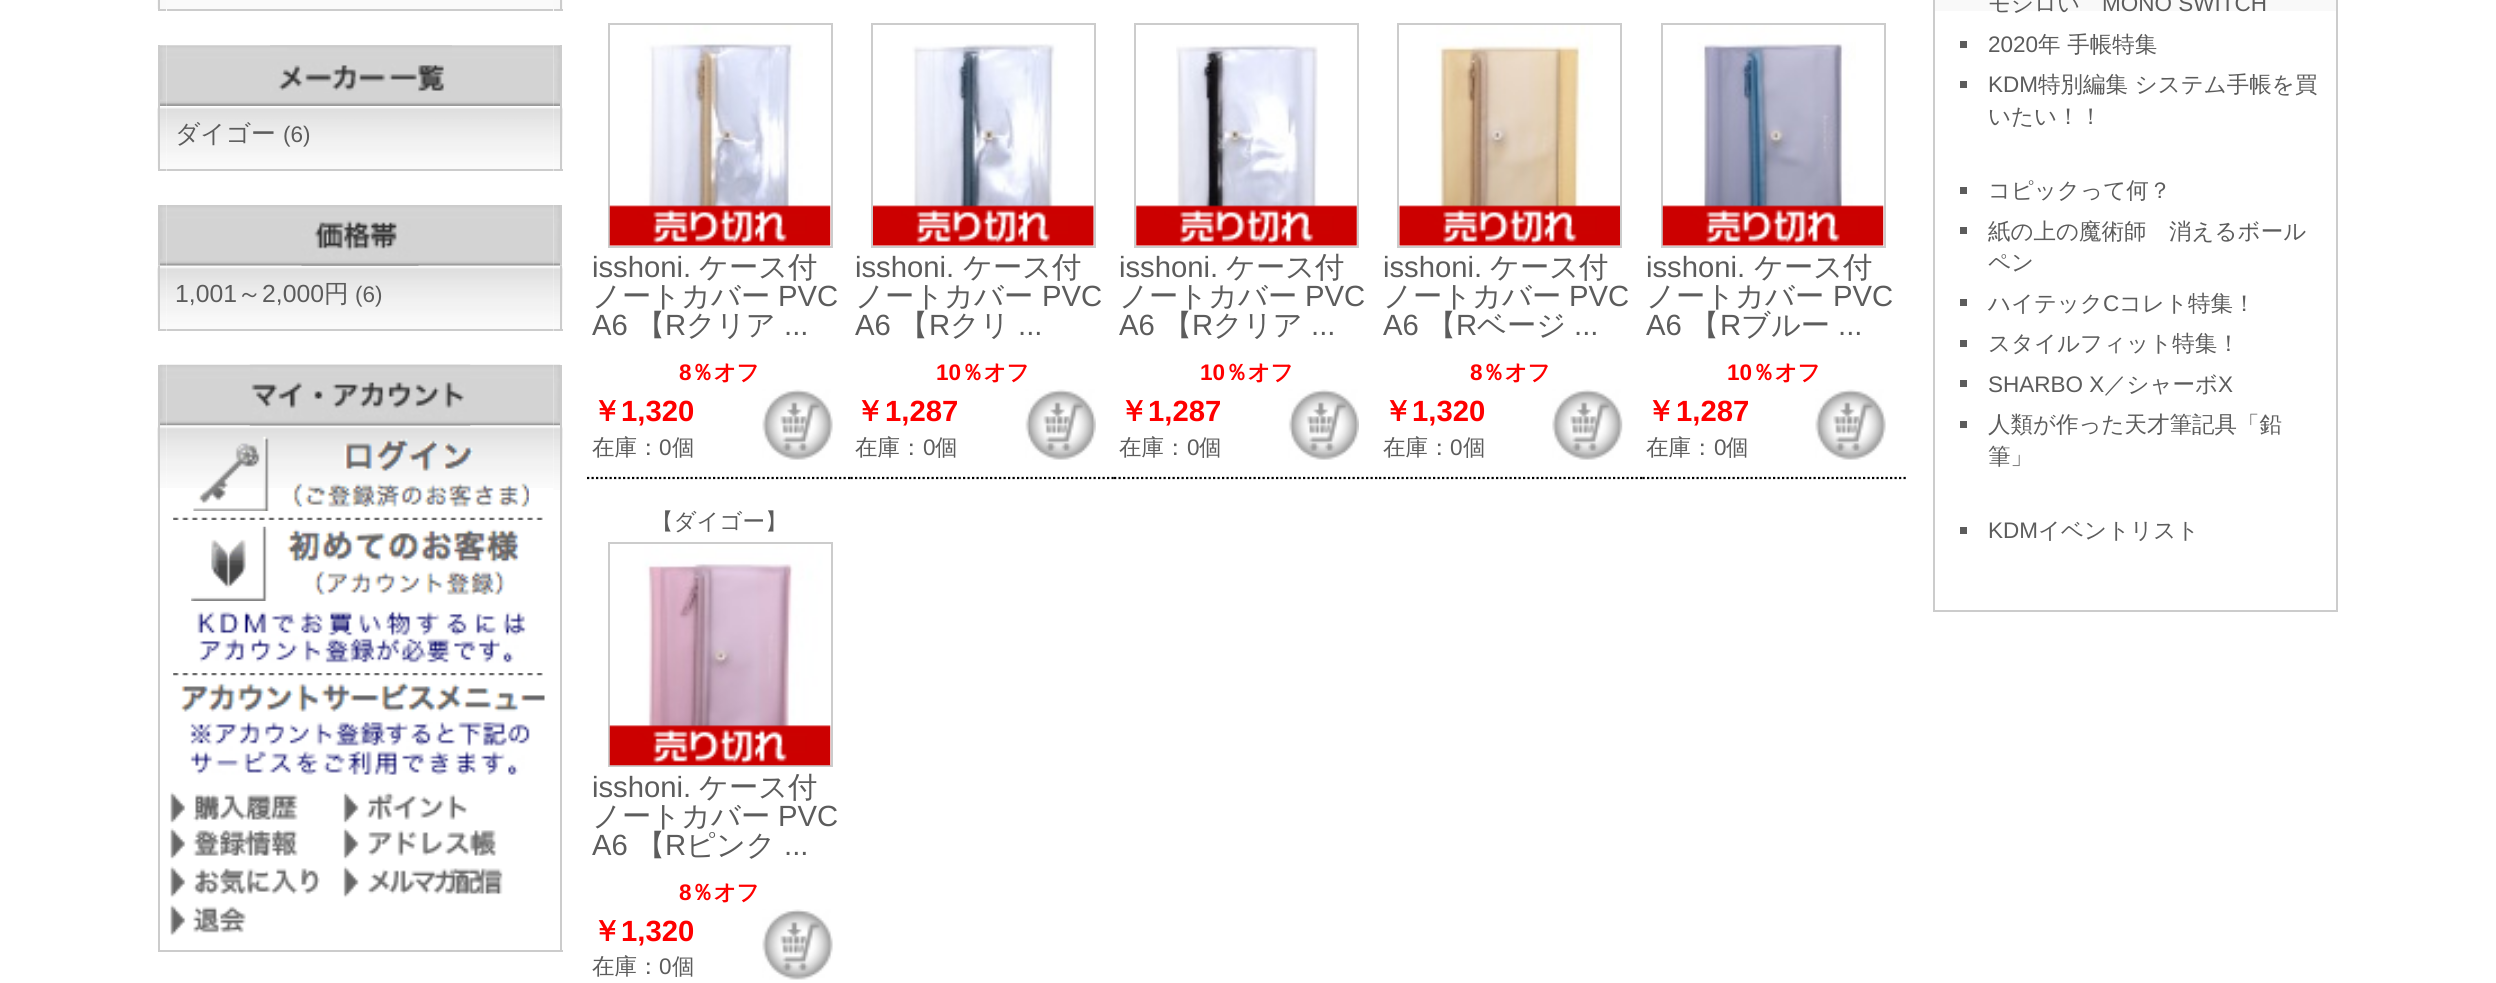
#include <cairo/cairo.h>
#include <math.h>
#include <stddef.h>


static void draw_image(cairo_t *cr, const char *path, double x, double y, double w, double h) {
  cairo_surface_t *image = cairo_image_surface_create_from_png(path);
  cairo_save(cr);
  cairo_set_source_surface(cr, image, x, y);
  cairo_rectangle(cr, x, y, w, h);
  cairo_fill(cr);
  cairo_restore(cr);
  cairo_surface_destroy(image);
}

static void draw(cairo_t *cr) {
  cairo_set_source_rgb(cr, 1, 1, 1);
  cairo_paint(cr);
  cairo_set_source_rgb(cr, 249 / 255.0, 249 / 255.0, 249 / 255.0);
  cairo_rectangle(cr, 157, 0, 9, 9);
  cairo_fill(cr);
  cairo_set_source_rgb(cr, 204 / 255.0, 204 / 255.0, 204 / 255.0);
  cairo_rectangle(cr, 158, 9, 9, 2);
  cairo_fill(cr);
  cairo_rectangle(cr, 158, 0, 2, 11);
  cairo_fill(cr);
  cairo_set_source_rgb(cr, 250 / 255.0, 250 / 255.0, 250 / 255.0);
  cairo_rectangle(cr, 166, 0, 387, 11);
  cairo_fill(cr);
  cairo_set_source_rgb(cr, 204 / 255.0, 204 / 255.0, 204 / 255.0);
  cairo_rectangle(cr, 167, 9, 387, 2);
  cairo_fill(cr);
  cairo_set_source_rgb(cr, 249 / 255.0, 249 / 255.0, 249 / 255.0);
  cairo_rectangle(cr, 553, 0, 10, 11);
  cairo_fill(cr);
  cairo_set_source_rgb(cr, 204 / 255.0, 204 / 255.0, 204 / 255.0);
  cairo_rectangle(cr, 560, 0, 2, 11);
  cairo_fill(cr);
  cairo_rectangle(cr, 554, 9, 9, 2);
  cairo_fill(cr);
  draw_image(cr, "images/1.png", 160, 45, 7, 61);
  cairo_rectangle(cr, 158, 45, 2, 61);
  cairo_fill(cr);
  draw_image(cr, "images/2.png", 166, 45, 388, 61);
  draw_image(cr, "images/3.png", 270, 45, 182, 48);
  draw_image(cr, "images/4.png", 553, 45, 7, 61);
  cairo_rectangle(cr, 560, 45, 2, 61);
  cairo_fill(cr);
  draw_image(cr, "images/5.png", 157, 107, 10, 62);
  cairo_rectangle(cr, 158, 169, 9, 2);
  cairo_fill(cr);
  cairo_rectangle(cr, 158, 106, 2, 65);
  cairo_fill(cr);
  draw_image(cr, "images/6.png", 166, 107, 388, 64);
  cairo_rectangle(cr, 167, 169, 387, 2);
  cairo_fill(cr);
  draw_image(cr, "images/7.png", 553, 107, 10, 64);
  cairo_rectangle(cr, 560, 106, 2, 65);
  cairo_fill(cr);
  cairo_rectangle(cr, 554, 169, 9, 2);
  cairo_fill(cr);
  draw_image(cr, "images/8.png", 160, 205, 7, 61);
  cairo_rectangle(cr, 158, 205, 2, 61);
  cairo_fill(cr);
  draw_image(cr, "images/9.png", 166, 205, 388, 61);
  draw_image(cr, "images/11.png", 553, 205, 7, 61);
  draw_image(cr, "images/12.png", 157, 265, 10, 64);
  cairo_rectangle(cr, 158, 329, 9, 2);
  cairo_fill(cr);
  draw_image(cr, "images/13.png", 166, 265, 388, 66);
  draw_image(cr, "images/10.png", 301, 220, 118, 46);
  cairo_rectangle(cr, 560, 205, 2, 61);
  cairo_fill(cr);
  cairo_rectangle(cr, 158, 266, 2, 65);
  cairo_fill(cr);
  cairo_rectangle(cr, 167, 329, 387, 2);
  cairo_fill(cr);
  draw_image(cr, "images/14.png", 553, 265, 10, 66);
  cairo_rectangle(cr, 560, 266, 2, 65);
  cairo_fill(cr);
  cairo_rectangle(cr, 554, 329, 9, 2);
  cairo_fill(cr);
  draw_image(cr, "images/15.png", 159, 364, 8, 62);
  cairo_rectangle(cr, 158, 365, 2, 60);
  cairo_fill(cr);
  draw_image(cr, "images/16.png", 166, 364, 388, 62);
  draw_image(cr, "images/18.png", 553, 364, 8, 62);
  draw_image(cr, "images/19.png", 157, 425, 10, 63);
  draw_image(cr, "images/20.png", 166, 425, 388, 63);
  draw_image(cr, "images/17.png", 249, 364, 222, 62);
  cairo_rectangle(cr, 560, 365, 2, 60);
  cairo_fill(cr);
  cairo_rectangle(cr, 158, 950, 396, 2);
  cairo_fill(cr);
  cairo_rectangle(cr, 158, 425, 2, 527);
  cairo_fill(cr);
  draw_image(cr, "images/21.png", 193, 436, 336, 75);
  draw_image(cr, "images/22.png", 173, 517, 370, 3);
  draw_image(cr, "images/23.png", 191, 526, 329, 75);
  draw_image(cr, "images/24.png", 197, 611, 330, 52);
  draw_image(cr, "images/25.png", 173, 673, 370, 3);
  draw_image(cr, "images/26.png", 180, 682, 365, 30);
  draw_image(cr, "images/27.png", 190, 722, 340, 53);
  draw_image(cr, "images/28.png", 170, 792, 128, 32);
  draw_image(cr, "images/29.png", 343, 792, 125, 32);
  draw_image(cr, "images/30.png", 170, 828, 128, 32);
  draw_image(cr, "images/31.png", 343, 828, 154, 32);
  draw_image(cr, "images/32.png", 170, 866, 150, 32);
  draw_image(cr, "images/33.png", 343, 866, 160, 32);
  draw_image(cr, "images/34.png", 170, 904, 76, 32);
  draw_image(cr, "images/35.png", 553, 425, 10, 65);
  cairo_rectangle(cr, 560, 425, 2, 527);
  cairo_fill(cr);
  cairo_rectangle(cr, 554, 950, 9, 2);
  cairo_fill(cr);
  cairo_set_source_rgb(cr, 249 / 255.0, 249 / 255.0, 249 / 255.0);
  cairo_rectangle(cr, 1935, 0, 401, 11);
  cairo_fill(cr);
  cairo_set_source_rgb(cr, 204 / 255.0, 204 / 255.0, 204 / 255.0);
  cairo_rectangle(cr, 2336, 0, 2, 612);
  cairo_fill(cr);
  cairo_rectangle(cr, 1933, 610, 405, 2);
  cairo_fill(cr);
  cairo_rectangle(cr, 1933, 0, 2, 612);
  cairo_fill(cr);
  cairo_set_source_rgb(cr, 92 / 255.0, 92 / 255.0, 92 / 255.0);
  cairo_rectangle(cr, 1960, 41, 7, 7);
  cairo_fill(cr);
  cairo_rectangle(cr, 1960, 81, 7, 7);
  cairo_fill(cr);
  cairo_rectangle(cr, 1960, 187, 7, 7);
  cairo_fill(cr);
  cairo_rectangle(cr, 1960, 227, 7, 7);
  cairo_fill(cr);
  cairo_rectangle(cr, 1960, 299, 7, 7);
  cairo_fill(cr);
  cairo_rectangle(cr, 1960, 340, 7, 7);
  cairo_fill(cr);
  cairo_rectangle(cr, 1960, 380, 7, 7);
  cairo_fill(cr);
  cairo_rectangle(cr, 1960, 421, 7, 7);
  cairo_fill(cr);
  cairo_rectangle(cr, 1960, 527, 7, 7);
  cairo_fill(cr);
  cairo_new_path(cr);
  cairo_move_to(cr, 587, 478);
  cairo_line_to(cr, 850.5, 478);
  cairo_set_source_rgb(cr, 0, 0, 0);
  cairo_set_line_width(cr, 2.2);
  cairo_set_dash(cr, (double[]){2.25, 2.25}, 2, 0);
  cairo_stroke(cr);
  draw_image(cr, "images/37.png", 610, 25, 193, 221);
  cairo_rectangle(cr, 609, 24, 223, 223);
  cairo_set_source_rgb(cr, 204 / 255.0, 204 / 255.0, 204 / 255.0);
  cairo_set_line_width(cr, 2);
  cairo_set_dash(cr, NULL, 0, 0);
  cairo_stroke(cr);
  draw_image(cr, "images/36.png", 609, 205, 222, 41);
  draw_image(cr, "images/38.png", 762, 389, 71, 71);
  cairo_new_path(cr);
  cairo_move_to(cr, 850.5, 478);
  cairo_line_to(cr, 1114, 478);
  cairo_set_source_rgb(cr, 0, 0, 0);
  cairo_set_line_width(cr, 2.2);
  cairo_set_dash(cr, (double[]){2.25, 2.25}, 2, 0);
  cairo_stroke(cr);
  cairo_rectangle(cr, 872, 24, 223, 223);
  cairo_set_source_rgb(cr, 204 / 255.0, 204 / 255.0, 204 / 255.0);
  cairo_set_line_width(cr, 2);
  cairo_set_dash(cr, NULL, 0, 0);
  cairo_stroke(cr);
  draw_image(cr, "images/39.png", 912, 43, 146, 164);
  draw_image(cr, "images/40.png", 873, 205, 221, 41);
  draw_image(cr, "images/41.png", 1025, 389, 71, 71);
  cairo_new_path(cr);
  cairo_move_to(cr, 1114, 478);
  cairo_line_to(cr, 1379, 478);
  cairo_set_source_rgb(cr, 0, 0, 0);
  cairo_set_line_width(cr, 2.2);
  cairo_set_dash(cr, (double[]){2.25, 2.25}, 2, 0);
  cairo_stroke(cr);
  cairo_rectangle(cr, 1135, 24, 223, 223);
  cairo_set_source_rgb(cr, 204 / 255.0, 204 / 255.0, 204 / 255.0);
  cairo_set_line_width(cr, 2);
  cairo_set_dash(cr, NULL, 0, 0);
  cairo_stroke(cr);
  draw_image(cr, "images/42.png", 1176, 44, 142, 163);
  draw_image(cr, "images/43.png", 1136, 205, 221, 41);
  draw_image(cr, "images/44.png", 1288, 389, 71, 71);
  cairo_new_path(cr);
  cairo_move_to(cr, 1379, 478);
  cairo_line_to(cr, 1642.5, 478);
  cairo_set_source_rgb(cr, 0, 0, 0);
  cairo_set_line_width(cr, 2.2);
  cairo_set_dash(cr, (double[]){2.25, 2.25}, 2, 0);
  cairo_stroke(cr);
  cairo_rectangle(cr, 1398, 24, 223, 223);
  cairo_set_source_rgb(cr, 204 / 255.0, 204 / 255.0, 204 / 255.0);
  cairo_set_line_width(cr, 2);
  cairo_set_dash(cr, NULL, 0, 0);
  cairo_stroke(cr);
  draw_image(cr, "images/45.png", 1436, 25, 157, 182);
  draw_image(cr, "images/46.png", 1399, 205, 221, 41);
  draw_image(cr, "images/47.png", 1552, 389, 71, 71);
  cairo_new_path(cr);
  cairo_move_to(cr, 1642.5, 478);
  cairo_line_to(cr, 1906, 478);
  cairo_set_source_rgb(cr, 0, 0, 0);
  cairo_set_line_width(cr, 2.2);
  cairo_set_dash(cr, (double[]){2.25, 2.25}, 2, 0);
  cairo_stroke(cr);
  draw_image(cr, "images/49.png", 1663, 25, 193, 221);
  cairo_rectangle(cr, 1662, 24, 223, 223);
  cairo_set_source_rgb(cr, 204 / 255.0, 204 / 255.0, 204 / 255.0);
  cairo_set_line_width(cr, 2);
  cairo_set_dash(cr, NULL, 0, 0);
  cairo_stroke(cr);
  draw_image(cr, "images/48.png", 1662, 205, 222, 41);
  draw_image(cr, "images/50.png", 1815, 389, 71, 71);
  draw_image(cr, "images/52.png", 610, 545, 220, 182);
  cairo_rectangle(cr, 609, 543, 223, 223);
  cairo_stroke(cr);
  draw_image(cr, "images/51.png", 609, 725, 222, 41);
  draw_image(cr, "images/53.png", 762, 909, 71, 71);
  cairo_select_font_face(cr, "WenQuanYi Zen Hei Medium", CAIRO_FONT_SLANT_NORMAL, CAIRO_FONT_WEIGHT_NORMAL);
  cairo_set_font_size(cr, 24.75);
  cairo_set_source_rgb(cr, 92 / 255.0, 92 / 255.0, 92 / 255.0);
  cairo_move_to(cr, 175, 142);
  cairo_show_text(cr, "ダイゴー");
  cairo_select_font_face(cr, "Liberation Sans", CAIRO_FONT_SLANT_NORMAL, CAIRO_FONT_WEIGHT_NORMAL);
  cairo_set_font_size(cr, 22.5);
  cairo_move_to(cr, 283, 142);
  cairo_show_text(cr, "(6)");
  cairo_set_font_size(cr, 24.75);
  cairo_move_to(cr, 175, 302);
  cairo_show_text(cr, "1,001");
  cairo_select_font_face(cr, "WenQuanYi Zen Hei Medium", CAIRO_FONT_SLANT_NORMAL, CAIRO_FONT_WEIGHT_NORMAL);
  cairo_move_to(cr, 237, 302);
  cairo_show_text(cr, "～");
  cairo_select_font_face(cr, "Liberation Sans", CAIRO_FONT_SLANT_NORMAL, CAIRO_FONT_WEIGHT_NORMAL);
  cairo_move_to(cr, 262, 302);
  cairo_show_text(cr, "2,000");
  cairo_select_font_face(cr, "WenQuanYi Zen Hei Medium", CAIRO_FONT_SLANT_NORMAL, CAIRO_FONT_WEIGHT_NORMAL);
  cairo_move_to(cr, 324, 302);
  cairo_show_text(cr, "円");
  cairo_select_font_face(cr, "Liberation Sans", CAIRO_FONT_SLANT_NORMAL, CAIRO_FONT_WEIGHT_NORMAL);
  cairo_set_font_size(cr, 22.5);
  cairo_move_to(cr, 355, 302);
  cairo_show_text(cr, "(6)");
  cairo_select_font_face(cr, "WenQuanYi Zen Hei Medium", CAIRO_FONT_SLANT_NORMAL, CAIRO_FONT_WEIGHT_NORMAL);
  cairo_move_to(cr, 1988, 11);
  cairo_show_text(cr, "モシロい");
  cairo_select_font_face(cr, "Liberation Sans", CAIRO_FONT_SLANT_NORMAL, CAIRO_FONT_WEIGHT_NORMAL);
  cairo_move_to(cr, 2102, 11);
  cairo_show_text(cr, "MONO SWITCH");
  cairo_move_to(cr, 1988, 52);
  cairo_show_text(cr, "2020");
  cairo_select_font_face(cr, "WenQuanYi Zen Hei Medium", CAIRO_FONT_SLANT_NORMAL, CAIRO_FONT_WEIGHT_NORMAL);
  cairo_move_to(cr, 2038, 52);
  cairo_show_text(cr, "年 手帳特集");
  cairo_select_font_face(cr, "Liberation Sans", CAIRO_FONT_SLANT_NORMAL, CAIRO_FONT_WEIGHT_NORMAL);
  cairo_move_to(cr, 1988, 92);
  cairo_show_text(cr, "KDM");
  cairo_select_font_face(cr, "WenQuanYi Zen Hei Medium", CAIRO_FONT_SLANT_NORMAL, CAIRO_FONT_WEIGHT_NORMAL);
  cairo_move_to(cr, 2038, 92);
  cairo_show_text(cr, "特別編集 システム手帳を買");
  cairo_move_to(cr, 1988, 124);
  cairo_show_text(cr, "いたい！！");
  cairo_move_to(cr, 1988, 198);
  cairo_show_text(cr, "コピックって何？");
  cairo_move_to(cr, 1988, 239);
  cairo_show_text(cr, "紙の上の魔術師　消えるボール");
  cairo_move_to(cr, 1988, 270);
  cairo_show_text(cr, "ペン");
  cairo_move_to(cr, 1988, 311);
  cairo_show_text(cr, "ハイテック");
  cairo_select_font_face(cr, "Liberation Sans", CAIRO_FONT_SLANT_NORMAL, CAIRO_FONT_WEIGHT_NORMAL);
  cairo_move_to(cr, 2103, 311);
  cairo_show_text(cr, "C");
  cairo_select_font_face(cr, "WenQuanYi Zen Hei Medium", CAIRO_FONT_SLANT_NORMAL, CAIRO_FONT_WEIGHT_NORMAL);
  cairo_move_to(cr, 2119, 311);
  cairo_show_text(cr, "コレト特集！");
  cairo_move_to(cr, 1988, 351);
  cairo_show_text(cr, "スタイルフィット特集！");
  cairo_select_font_face(cr, "Liberation Sans", CAIRO_FONT_SLANT_NORMAL, CAIRO_FONT_WEIGHT_NORMAL);
  cairo_move_to(cr, 1988, 392);
  cairo_show_text(cr, "SHARBO X");
  cairo_select_font_face(cr, "WenQuanYi Zen Hei Medium", CAIRO_FONT_SLANT_NORMAL, CAIRO_FONT_WEIGHT_NORMAL);
  cairo_move_to(cr, 2104, 392);
  cairo_show_text(cr, "／シャーボ");
  cairo_select_font_face(cr, "Liberation Sans", CAIRO_FONT_SLANT_NORMAL, CAIRO_FONT_WEIGHT_NORMAL);
  cairo_move_to(cr, 2218, 392);
  cairo_show_text(cr, "X");
  cairo_select_font_face(cr, "WenQuanYi Zen Hei Medium", CAIRO_FONT_SLANT_NORMAL, CAIRO_FONT_WEIGHT_NORMAL);
  cairo_move_to(cr, 1988, 432);
  cairo_show_text(cr, "人類が作った天才筆記具「鉛");
  cairo_move_to(cr, 1988, 464);
  cairo_show_text(cr, "筆」");
  cairo_select_font_face(cr, "Liberation Sans", CAIRO_FONT_SLANT_NORMAL, CAIRO_FONT_WEIGHT_NORMAL);
  cairo_move_to(cr, 1988, 538);
  cairo_show_text(cr, "KDM");
  cairo_select_font_face(cr, "WenQuanYi Zen Hei Medium", CAIRO_FONT_SLANT_NORMAL, CAIRO_FONT_WEIGHT_NORMAL);
  cairo_move_to(cr, 2038, 538);
  cairo_show_text(cr, "イベントリスト");
  cairo_select_font_face(cr, "Liberation Sans", CAIRO_FONT_SLANT_NORMAL, CAIRO_FONT_WEIGHT_NORMAL);
  cairo_set_font_size(cr, 29.25);
  cairo_move_to(cr, 592, 277);
  cairo_show_text(cr, "isshoni.");
  cairo_select_font_face(cr, "WenQuanYi Zen Hei Medium", CAIRO_FONT_SLANT_NORMAL, CAIRO_FONT_WEIGHT_NORMAL);
  cairo_move_to(cr, 699, 277);
  cairo_show_text(cr, "ケース付");
  cairo_move_to(cr, 592, 306);
  cairo_show_text(cr, "ノートカバー");
  cairo_select_font_face(cr, "Liberation Sans", CAIRO_FONT_SLANT_NORMAL, CAIRO_FONT_WEIGHT_NORMAL);
  cairo_move_to(cr, 778, 306);
  cairo_show_text(cr, "PVC");
  cairo_move_to(cr, 592, 335);
  cairo_show_text(cr, "A6");
  cairo_select_font_face(cr, "WenQuanYi Zen Hei Medium", CAIRO_FONT_SLANT_NORMAL, CAIRO_FONT_WEIGHT_NORMAL);
  cairo_move_to(cr, 636, 335);
  cairo_show_text(cr, "【");
  cairo_select_font_face(cr, "Liberation Sans", CAIRO_FONT_SLANT_NORMAL, CAIRO_FONT_WEIGHT_NORMAL);
  cairo_move_to(cr, 665, 335);
  cairo_show_text(cr, "R");
  cairo_select_font_face(cr, "WenQuanYi Zen Hei Medium", CAIRO_FONT_SLANT_NORMAL, CAIRO_FONT_WEIGHT_NORMAL);
  cairo_move_to(cr, 686, 335);
  cairo_show_text(cr, "クリア");
  cairo_select_font_face(cr, "Liberation Sans", CAIRO_FONT_SLANT_NORMAL, CAIRO_FONT_WEIGHT_NORMAL);
  cairo_move_to(cr, 784, 335);
  cairo_show_text(cr, "...");
  cairo_select_font_face(cr, "Liberation Sans", CAIRO_FONT_SLANT_NORMAL, CAIRO_FONT_WEIGHT_BOLD);
  cairo_set_font_size(cr, 22.5);
  cairo_set_source_rgb(cr, 1, 0, 0);
  cairo_move_to(cr, 679, 380);
  cairo_show_text(cr, "8");
  cairo_select_font_face(cr, "WenQuanYi Zen Hei", CAIRO_FONT_SLANT_NORMAL, CAIRO_FONT_WEIGHT_BOLD);
  cairo_move_to(cr, 691, 380);
  cairo_show_text(cr, "％オフ");
  cairo_set_font_size(cr, 29.25);
  cairo_move_to(cr, 592, 421);
  cairo_show_text(cr, "￥");
  cairo_select_font_face(cr, "Liberation Sans", CAIRO_FONT_SLANT_NORMAL, CAIRO_FONT_WEIGHT_BOLD);
  cairo_move_to(cr, 621, 421);
  cairo_show_text(cr, "1,320");
  cairo_select_font_face(cr, "WenQuanYi Zen Hei Medium", CAIRO_FONT_SLANT_NORMAL, CAIRO_FONT_WEIGHT_NORMAL);
  cairo_set_font_size(cr, 22.5);
  cairo_set_source_rgb(cr, 92 / 255.0, 92 / 255.0, 92 / 255.0);
  cairo_move_to(cr, 592, 455);
  cairo_show_text(cr, "在庫：");
  cairo_select_font_face(cr, "Liberation Sans", CAIRO_FONT_SLANT_NORMAL, CAIRO_FONT_WEIGHT_NORMAL);
  cairo_move_to(cr, 659, 455);
  cairo_show_text(cr, "0");
  cairo_select_font_face(cr, "WenQuanYi Zen Hei Medium", CAIRO_FONT_SLANT_NORMAL, CAIRO_FONT_WEIGHT_NORMAL);
  cairo_move_to(cr, 672, 455);
  cairo_show_text(cr, "個");
  cairo_select_font_face(cr, "Liberation Sans", CAIRO_FONT_SLANT_NORMAL, CAIRO_FONT_WEIGHT_NORMAL);
  cairo_set_font_size(cr, 29.25);
  cairo_move_to(cr, 855, 277);
  cairo_show_text(cr, "isshoni.");
  cairo_select_font_face(cr, "WenQuanYi Zen Hei Medium", CAIRO_FONT_SLANT_NORMAL, CAIRO_FONT_WEIGHT_NORMAL);
  cairo_move_to(cr, 963, 277);
  cairo_show_text(cr, "ケース付");
  cairo_move_to(cr, 855, 306);
  cairo_show_text(cr, "ノートカバー");
  cairo_select_font_face(cr, "Liberation Sans", CAIRO_FONT_SLANT_NORMAL, CAIRO_FONT_WEIGHT_NORMAL);
  cairo_move_to(cr, 1042, 306);
  cairo_show_text(cr, "PVC");
  cairo_move_to(cr, 855, 335);
  cairo_show_text(cr, "A6");
  cairo_select_font_face(cr, "WenQuanYi Zen Hei Medium", CAIRO_FONT_SLANT_NORMAL, CAIRO_FONT_WEIGHT_NORMAL);
  cairo_move_to(cr, 899, 335);
  cairo_show_text(cr, "【");
  cairo_select_font_face(cr, "Liberation Sans", CAIRO_FONT_SLANT_NORMAL, CAIRO_FONT_WEIGHT_NORMAL);
  cairo_move_to(cr, 929, 335);
  cairo_show_text(cr, "R");
  cairo_select_font_face(cr, "WenQuanYi Zen Hei Medium", CAIRO_FONT_SLANT_NORMAL, CAIRO_FONT_WEIGHT_NORMAL);
  cairo_move_to(cr, 950, 335);
  cairo_show_text(cr, "クリ");
  cairo_select_font_face(cr, "Liberation Sans", CAIRO_FONT_SLANT_NORMAL, CAIRO_FONT_WEIGHT_NORMAL);
  cairo_move_to(cr, 1018, 335);
  cairo_show_text(cr, "...");
  cairo_select_font_face(cr, "Liberation Sans", CAIRO_FONT_SLANT_NORMAL, CAIRO_FONT_WEIGHT_BOLD);
  cairo_set_font_size(cr, 22.5);
  cairo_set_source_rgb(cr, 1, 0, 0);
  cairo_move_to(cr, 936, 380);
  cairo_show_text(cr, "10");
  cairo_select_font_face(cr, "WenQuanYi Zen Hei", CAIRO_FONT_SLANT_NORMAL, CAIRO_FONT_WEIGHT_BOLD);
  cairo_move_to(cr, 961, 380);
  cairo_show_text(cr, "％オフ");
  cairo_set_font_size(cr, 29.25);
  cairo_move_to(cr, 855, 421);
  cairo_show_text(cr, "￥");
  cairo_select_font_face(cr, "Liberation Sans", CAIRO_FONT_SLANT_NORMAL, CAIRO_FONT_WEIGHT_BOLD);
  cairo_move_to(cr, 885, 421);
  cairo_show_text(cr, "1,287");
  cairo_select_font_face(cr, "WenQuanYi Zen Hei Medium", CAIRO_FONT_SLANT_NORMAL, CAIRO_FONT_WEIGHT_NORMAL);
  cairo_set_font_size(cr, 22.5);
  cairo_set_source_rgb(cr, 92 / 255.0, 92 / 255.0, 92 / 255.0);
  cairo_move_to(cr, 855, 455);
  cairo_show_text(cr, "在庫：");
  cairo_select_font_face(cr, "Liberation Sans", CAIRO_FONT_SLANT_NORMAL, CAIRO_FONT_WEIGHT_NORMAL);
  cairo_move_to(cr, 923, 455);
  cairo_show_text(cr, "0");
  cairo_select_font_face(cr, "WenQuanYi Zen Hei Medium", CAIRO_FONT_SLANT_NORMAL, CAIRO_FONT_WEIGHT_NORMAL);
  cairo_move_to(cr, 935, 455);
  cairo_show_text(cr, "個");
  cairo_select_font_face(cr, "Liberation Sans", CAIRO_FONT_SLANT_NORMAL, CAIRO_FONT_WEIGHT_NORMAL);
  cairo_set_font_size(cr, 29.25);
  cairo_move_to(cr, 1119, 277);
  cairo_show_text(cr, "isshoni.");
  cairo_select_font_face(cr, "WenQuanYi Zen Hei Medium", CAIRO_FONT_SLANT_NORMAL, CAIRO_FONT_WEIGHT_NORMAL);
  cairo_move_to(cr, 1226, 277);
  cairo_show_text(cr, "ケース付");
  cairo_move_to(cr, 1119, 306);
  cairo_show_text(cr, "ノートカバー");
  cairo_select_font_face(cr, "Liberation Sans", CAIRO_FONT_SLANT_NORMAL, CAIRO_FONT_WEIGHT_NORMAL);
  cairo_move_to(cr, 1305, 306);
  cairo_show_text(cr, "PVC");
  cairo_move_to(cr, 1119, 335);
  cairo_show_text(cr, "A6");
  cairo_select_font_face(cr, "WenQuanYi Zen Hei Medium", CAIRO_FONT_SLANT_NORMAL, CAIRO_FONT_WEIGHT_NORMAL);
  cairo_move_to(cr, 1163, 335);
  cairo_show_text(cr, "【");
  cairo_select_font_face(cr, "Liberation Sans", CAIRO_FONT_SLANT_NORMAL, CAIRO_FONT_WEIGHT_NORMAL);
  cairo_move_to(cr, 1192, 335);
  cairo_show_text(cr, "R");
  cairo_select_font_face(cr, "WenQuanYi Zen Hei Medium", CAIRO_FONT_SLANT_NORMAL, CAIRO_FONT_WEIGHT_NORMAL);
  cairo_move_to(cr, 1213, 335);
  cairo_show_text(cr, "クリア");
  cairo_select_font_face(cr, "Liberation Sans", CAIRO_FONT_SLANT_NORMAL, CAIRO_FONT_WEIGHT_NORMAL);
  cairo_move_to(cr, 1311, 335);
  cairo_show_text(cr, "...");
  cairo_select_font_face(cr, "Liberation Sans", CAIRO_FONT_SLANT_NORMAL, CAIRO_FONT_WEIGHT_BOLD);
  cairo_set_font_size(cr, 22.5);
  cairo_set_source_rgb(cr, 1, 0, 0);
  cairo_move_to(cr, 1200, 380);
  cairo_show_text(cr, "10");
  cairo_select_font_face(cr, "WenQuanYi Zen Hei", CAIRO_FONT_SLANT_NORMAL, CAIRO_FONT_WEIGHT_BOLD);
  cairo_move_to(cr, 1225, 380);
  cairo_show_text(cr, "％オフ");
  cairo_set_font_size(cr, 29.25);
  cairo_move_to(cr, 1119, 421);
  cairo_show_text(cr, "￥");
  cairo_select_font_face(cr, "Liberation Sans", CAIRO_FONT_SLANT_NORMAL, CAIRO_FONT_WEIGHT_BOLD);
  cairo_move_to(cr, 1148, 421);
  cairo_show_text(cr, "1,287");
  cairo_select_font_face(cr, "WenQuanYi Zen Hei Medium", CAIRO_FONT_SLANT_NORMAL, CAIRO_FONT_WEIGHT_NORMAL);
  cairo_set_font_size(cr, 22.5);
  cairo_set_source_rgb(cr, 92 / 255.0, 92 / 255.0, 92 / 255.0);
  cairo_move_to(cr, 1119, 455);
  cairo_show_text(cr, "在庫：");
  cairo_select_font_face(cr, "Liberation Sans", CAIRO_FONT_SLANT_NORMAL, CAIRO_FONT_WEIGHT_NORMAL);
  cairo_move_to(cr, 1187, 455);
  cairo_show_text(cr, "0");
  cairo_select_font_face(cr, "WenQuanYi Zen Hei Medium", CAIRO_FONT_SLANT_NORMAL, CAIRO_FONT_WEIGHT_NORMAL);
  cairo_move_to(cr, 1199, 455);
  cairo_show_text(cr, "個");
  cairo_select_font_face(cr, "Liberation Sans", CAIRO_FONT_SLANT_NORMAL, CAIRO_FONT_WEIGHT_NORMAL);
  cairo_set_font_size(cr, 29.25);
  cairo_move_to(cr, 1383, 277);
  cairo_show_text(cr, "isshoni.");
  cairo_select_font_face(cr, "WenQuanYi Zen Hei Medium", CAIRO_FONT_SLANT_NORMAL, CAIRO_FONT_WEIGHT_NORMAL);
  cairo_move_to(cr, 1490, 277);
  cairo_show_text(cr, "ケース付");
  cairo_move_to(cr, 1383, 306);
  cairo_show_text(cr, "ノートカバー");
  cairo_select_font_face(cr, "Liberation Sans", CAIRO_FONT_SLANT_NORMAL, CAIRO_FONT_WEIGHT_NORMAL);
  cairo_move_to(cr, 1569, 306);
  cairo_show_text(cr, "PVC");
  cairo_move_to(cr, 1383, 335);
  cairo_show_text(cr, "A6");
  cairo_select_font_face(cr, "WenQuanYi Zen Hei Medium", CAIRO_FONT_SLANT_NORMAL, CAIRO_FONT_WEIGHT_NORMAL);
  cairo_move_to(cr, 1427, 335);
  cairo_show_text(cr, "【");
  cairo_select_font_face(cr, "Liberation Sans", CAIRO_FONT_SLANT_NORMAL, CAIRO_FONT_WEIGHT_NORMAL);
  cairo_move_to(cr, 1456, 335);
  cairo_show_text(cr, "R");
  cairo_select_font_face(cr, "WenQuanYi Zen Hei Medium", CAIRO_FONT_SLANT_NORMAL, CAIRO_FONT_WEIGHT_NORMAL);
  cairo_move_to(cr, 1477, 335);
  cairo_show_text(cr, "ベージ");
  cairo_select_font_face(cr, "Liberation Sans", CAIRO_FONT_SLANT_NORMAL, CAIRO_FONT_WEIGHT_NORMAL);
  cairo_move_to(cr, 1574, 335);
  cairo_show_text(cr, "...");
  cairo_select_font_face(cr, "Liberation Sans", CAIRO_FONT_SLANT_NORMAL, CAIRO_FONT_WEIGHT_BOLD);
  cairo_set_font_size(cr, 22.5);
  cairo_set_source_rgb(cr, 1, 0, 0);
  cairo_move_to(cr, 1470, 380);
  cairo_show_text(cr, "8");
  cairo_select_font_face(cr, "WenQuanYi Zen Hei", CAIRO_FONT_SLANT_NORMAL, CAIRO_FONT_WEIGHT_BOLD);
  cairo_move_to(cr, 1482, 380);
  cairo_show_text(cr, "％オフ");
  cairo_set_font_size(cr, 29.25);
  cairo_move_to(cr, 1383, 421);
  cairo_show_text(cr, "￥");
  cairo_select_font_face(cr, "Liberation Sans", CAIRO_FONT_SLANT_NORMAL, CAIRO_FONT_WEIGHT_BOLD);
  cairo_move_to(cr, 1412, 421);
  cairo_show_text(cr, "1,320");
  cairo_select_font_face(cr, "WenQuanYi Zen Hei Medium", CAIRO_FONT_SLANT_NORMAL, CAIRO_FONT_WEIGHT_NORMAL);
  cairo_set_font_size(cr, 22.5);
  cairo_set_source_rgb(cr, 92 / 255.0, 92 / 255.0, 92 / 255.0);
  cairo_move_to(cr, 1383, 455);
  cairo_show_text(cr, "在庫：");
  cairo_select_font_face(cr, "Liberation Sans", CAIRO_FONT_SLANT_NORMAL, CAIRO_FONT_WEIGHT_NORMAL);
  cairo_move_to(cr, 1450, 455);
  cairo_show_text(cr, "0");
  cairo_select_font_face(cr, "WenQuanYi Zen Hei Medium", CAIRO_FONT_SLANT_NORMAL, CAIRO_FONT_WEIGHT_NORMAL);
  cairo_move_to(cr, 1463, 455);
  cairo_show_text(cr, "個");
  cairo_select_font_face(cr, "Liberation Sans", CAIRO_FONT_SLANT_NORMAL, CAIRO_FONT_WEIGHT_NORMAL);
  cairo_set_font_size(cr, 29.25);
  cairo_move_to(cr, 1646, 277);
  cairo_show_text(cr, "isshoni.");
  cairo_select_font_face(cr, "WenQuanYi Zen Hei Medium", CAIRO_FONT_SLANT_NORMAL, CAIRO_FONT_WEIGHT_NORMAL);
  cairo_move_to(cr, 1754, 277);
  cairo_show_text(cr, "ケース付");
  cairo_move_to(cr, 1646, 306);
  cairo_show_text(cr, "ノートカバー");
  cairo_select_font_face(cr, "Liberation Sans", CAIRO_FONT_SLANT_NORMAL, CAIRO_FONT_WEIGHT_NORMAL);
  cairo_move_to(cr, 1833, 306);
  cairo_show_text(cr, "PVC");
  cairo_move_to(cr, 1646, 335);
  cairo_show_text(cr, "A6");
  cairo_select_font_face(cr, "WenQuanYi Zen Hei Medium", CAIRO_FONT_SLANT_NORMAL, CAIRO_FONT_WEIGHT_NORMAL);
  cairo_move_to(cr, 1690, 335);
  cairo_show_text(cr, "【");
  cairo_select_font_face(cr, "Liberation Sans", CAIRO_FONT_SLANT_NORMAL, CAIRO_FONT_WEIGHT_NORMAL);
  cairo_move_to(cr, 1720, 335);
  cairo_show_text(cr, "R");
  cairo_select_font_face(cr, "WenQuanYi Zen Hei Medium", CAIRO_FONT_SLANT_NORMAL, CAIRO_FONT_WEIGHT_NORMAL);
  cairo_move_to(cr, 1741, 335);
  cairo_show_text(cr, "ブルー");
  cairo_select_font_face(cr, "Liberation Sans", CAIRO_FONT_SLANT_NORMAL, CAIRO_FONT_WEIGHT_NORMAL);
  cairo_move_to(cr, 1838, 335);
  cairo_show_text(cr, "...");
  cairo_select_font_face(cr, "Liberation Sans", CAIRO_FONT_SLANT_NORMAL, CAIRO_FONT_WEIGHT_BOLD);
  cairo_set_font_size(cr, 22.5);
  cairo_set_source_rgb(cr, 1, 0, 0);
  cairo_move_to(cr, 1727, 380);
  cairo_show_text(cr, "10");
  cairo_select_font_face(cr, "WenQuanYi Zen Hei", CAIRO_FONT_SLANT_NORMAL, CAIRO_FONT_WEIGHT_BOLD);
  cairo_move_to(cr, 1752, 380);
  cairo_show_text(cr, "％オフ");
  cairo_set_font_size(cr, 29.25);
  cairo_move_to(cr, 1646, 421);
  cairo_show_text(cr, "￥");
  cairo_select_font_face(cr, "Liberation Sans", CAIRO_FONT_SLANT_NORMAL, CAIRO_FONT_WEIGHT_BOLD);
  cairo_move_to(cr, 1676, 421);
  cairo_show_text(cr, "1,287");
  cairo_select_font_face(cr, "WenQuanYi Zen Hei Medium", CAIRO_FONT_SLANT_NORMAL, CAIRO_FONT_WEIGHT_NORMAL);
  cairo_set_font_size(cr, 22.5);
  cairo_set_source_rgb(cr, 92 / 255.0, 92 / 255.0, 92 / 255.0);
  cairo_move_to(cr, 1646, 455);
  cairo_show_text(cr, "在庫：");
  cairo_select_font_face(cr, "Liberation Sans", CAIRO_FONT_SLANT_NORMAL, CAIRO_FONT_WEIGHT_NORMAL);
  cairo_move_to(cr, 1714, 455);
  cairo_show_text(cr, "0");
  cairo_select_font_face(cr, "WenQuanYi Zen Hei Medium", CAIRO_FONT_SLANT_NORMAL, CAIRO_FONT_WEIGHT_NORMAL);
  cairo_move_to(cr, 1726, 455);
  cairo_show_text(cr, "個");
  cairo_move_to(cr, 651, 529);
  cairo_show_text(cr, "【ダイゴー】");
  cairo_select_font_face(cr, "Liberation Sans", CAIRO_FONT_SLANT_NORMAL, CAIRO_FONT_WEIGHT_NORMAL);
  cairo_set_font_size(cr, 29.25);
  cairo_move_to(cr, 592, 797);
  cairo_show_text(cr, "isshoni.");
  cairo_select_font_face(cr, "WenQuanYi Zen Hei Medium", CAIRO_FONT_SLANT_NORMAL, CAIRO_FONT_WEIGHT_NORMAL);
  cairo_move_to(cr, 699, 797);
  cairo_show_text(cr, "ケース付");
  cairo_move_to(cr, 592, 826);
  cairo_show_text(cr, "ノートカバー");
  cairo_select_font_face(cr, "Liberation Sans", CAIRO_FONT_SLANT_NORMAL, CAIRO_FONT_WEIGHT_NORMAL);
  cairo_move_to(cr, 778, 826);
  cairo_show_text(cr, "PVC");
  cairo_move_to(cr, 592, 855);
  cairo_show_text(cr, "A6");
  cairo_select_font_face(cr, "WenQuanYi Zen Hei Medium", CAIRO_FONT_SLANT_NORMAL, CAIRO_FONT_WEIGHT_NORMAL);
  cairo_move_to(cr, 636, 855);
  cairo_show_text(cr, "【");
  cairo_select_font_face(cr, "Liberation Sans", CAIRO_FONT_SLANT_NORMAL, CAIRO_FONT_WEIGHT_NORMAL);
  cairo_move_to(cr, 665, 855);
  cairo_show_text(cr, "R");
  cairo_select_font_face(cr, "WenQuanYi Zen Hei Medium", CAIRO_FONT_SLANT_NORMAL, CAIRO_FONT_WEIGHT_NORMAL);
  cairo_move_to(cr, 686, 855);
  cairo_show_text(cr, "ピンク");
  cairo_select_font_face(cr, "Liberation Sans", CAIRO_FONT_SLANT_NORMAL, CAIRO_FONT_WEIGHT_NORMAL);
  cairo_move_to(cr, 784, 855);
  cairo_show_text(cr, "...");
  cairo_select_font_face(cr, "Liberation Sans", CAIRO_FONT_SLANT_NORMAL, CAIRO_FONT_WEIGHT_BOLD);
  cairo_set_font_size(cr, 22.5);
  cairo_set_source_rgb(cr, 1, 0, 0);
  cairo_move_to(cr, 679, 900);
  cairo_show_text(cr, "8");
  cairo_select_font_face(cr, "WenQuanYi Zen Hei", CAIRO_FONT_SLANT_NORMAL, CAIRO_FONT_WEIGHT_BOLD);
  cairo_move_to(cr, 691, 900);
  cairo_show_text(cr, "％オフ");
  cairo_set_font_size(cr, 29.25);
  cairo_move_to(cr, 592, 941);
  cairo_show_text(cr, "￥");
  cairo_select_font_face(cr, "Liberation Sans", CAIRO_FONT_SLANT_NORMAL, CAIRO_FONT_WEIGHT_BOLD);
  cairo_move_to(cr, 621, 941);
  cairo_show_text(cr, "1,320");
  cairo_select_font_face(cr, "WenQuanYi Zen Hei Medium", CAIRO_FONT_SLANT_NORMAL, CAIRO_FONT_WEIGHT_NORMAL);
  cairo_set_font_size(cr, 22.5);
  cairo_set_source_rgb(cr, 92 / 255.0, 92 / 255.0, 92 / 255.0);
  cairo_move_to(cr, 592, 974);
  cairo_show_text(cr, "在庫：");
  cairo_select_font_face(cr, "Liberation Sans", CAIRO_FONT_SLANT_NORMAL, CAIRO_FONT_WEIGHT_NORMAL);
  cairo_move_to(cr, 659, 974);
  cairo_show_text(cr, "0");
  cairo_select_font_face(cr, "WenQuanYi Zen Hei Medium", CAIRO_FONT_SLANT_NORMAL, CAIRO_FONT_WEIGHT_NORMAL);
  cairo_move_to(cr, 672, 974);
  cairo_show_text(cr, "個");
}

int main(void) {
  cairo_surface_t *surface = cairo_image_surface_create(CAIRO_FORMAT_RGB24, 2496, 983);
  cairo_t *cr = cairo_create(surface);
  cairo_font_options_t *options = cairo_font_options_create();
  cairo_font_options_set_hint_metrics(options, CAIRO_HINT_METRICS_OFF);
  cairo_font_options_set_hint_style(options, CAIRO_HINT_STYLE_NONE);
  cairo_set_font_options(cr, options);
  cairo_set_miter_limit(cr, 4);
  draw(cr);
  cairo_surface_write_to_png(surface, "out.png");
  cairo_font_options_destroy(options);
  cairo_destroy(cr);
  cairo_surface_destroy(surface);
  return 0;
}
